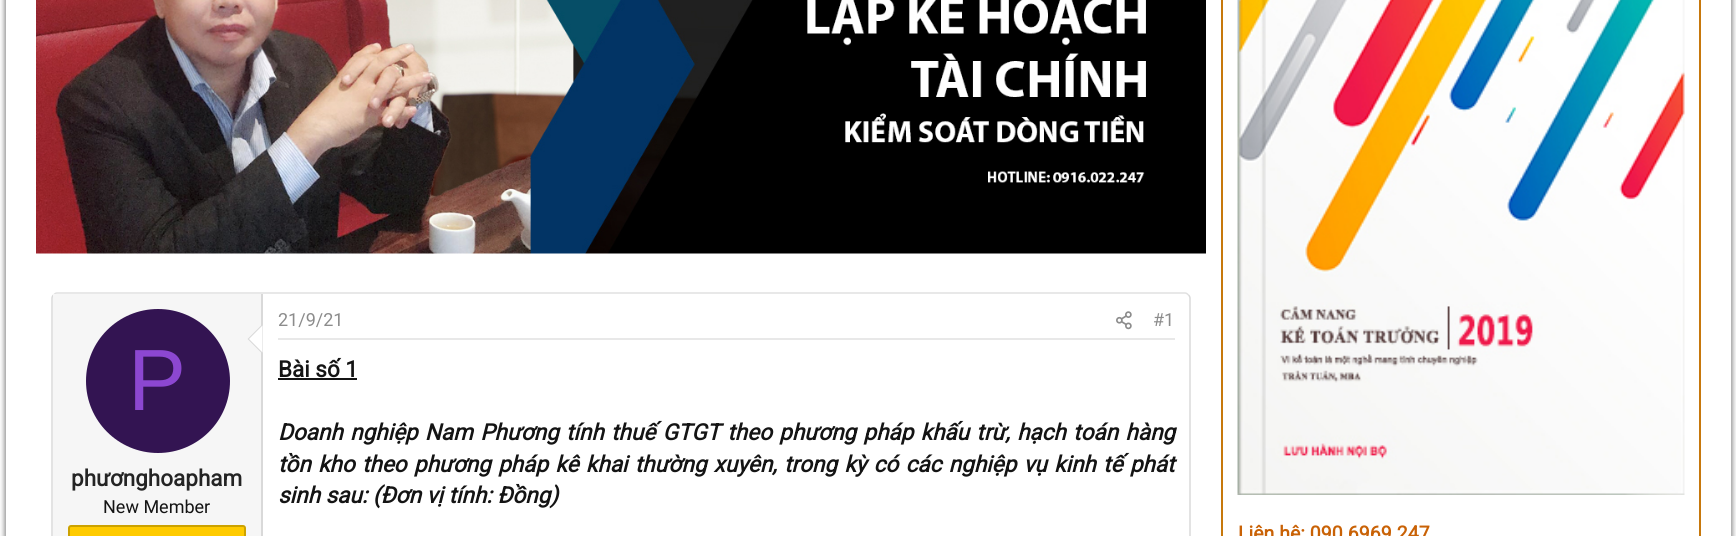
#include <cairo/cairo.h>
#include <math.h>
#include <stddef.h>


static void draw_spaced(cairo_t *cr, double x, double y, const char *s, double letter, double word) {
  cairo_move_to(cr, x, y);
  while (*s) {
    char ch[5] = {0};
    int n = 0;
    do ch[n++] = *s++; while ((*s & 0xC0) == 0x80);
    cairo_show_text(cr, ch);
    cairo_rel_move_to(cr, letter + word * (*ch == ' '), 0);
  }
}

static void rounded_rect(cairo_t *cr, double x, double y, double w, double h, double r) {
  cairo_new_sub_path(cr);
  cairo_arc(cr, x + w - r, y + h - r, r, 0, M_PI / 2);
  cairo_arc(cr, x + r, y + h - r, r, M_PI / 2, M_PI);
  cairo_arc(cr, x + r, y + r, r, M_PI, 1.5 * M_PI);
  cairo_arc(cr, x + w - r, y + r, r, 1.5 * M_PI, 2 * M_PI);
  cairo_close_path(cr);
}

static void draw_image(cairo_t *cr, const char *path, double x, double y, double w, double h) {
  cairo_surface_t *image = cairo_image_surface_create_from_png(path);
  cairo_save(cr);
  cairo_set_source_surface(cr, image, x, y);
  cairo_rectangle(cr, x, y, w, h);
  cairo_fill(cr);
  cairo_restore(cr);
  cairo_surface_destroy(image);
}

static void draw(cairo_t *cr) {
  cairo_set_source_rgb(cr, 1, 1, 1);
  cairo_paint(cr);
  draw_image(cr, "images/1.png", 0, 0, 1736, 536);
  draw_image(cr, "images/2.png", 36, 0, 1170, 254);
  cairo_new_path(cr);
  cairo_move_to(cr, 53.5, 295);
  cairo_curve_to(cr, 54.5, 294, 55.5, 293, 57, 293);
  cairo_line_to(cr, 1185, 293);
  cairo_curve_to(cr, 1186.5, 293, 1187.5, 294, 1188.5, 295);
  cairo_set_source_rgb(cr, 224 / 255.0, 224 / 255.0, 224 / 255.0);
  cairo_set_line_width(cr, 1.5);
  cairo_stroke(cr);
  cairo_new_path(cr);
  cairo_move_to(cr, 1188.5, 295);
  cairo_curve_to(cr, 1189.5, 296, 1190, 297, 1190, 298.5);
  cairo_line_to(cr, 1190, 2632.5);
  cairo_curve_to(cr, 1190, 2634, 1189.5, 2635, 1188.5, 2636);
  cairo_set_source_rgb(cr, 217 / 255.0, 217 / 255.0, 217 / 255.0);
  cairo_stroke(cr);
  cairo_new_path(cr);
  cairo_move_to(cr, 53.5, 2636);
  cairo_curve_to(cr, 52.5, 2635, 52, 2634, 52, 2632.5);
  cairo_line_to(cr, 52, 298.5);
  cairo_curve_to(cr, 52, 297, 52.5, 296, 53.5, 295);
  cairo_stroke(cr);
  cairo_set_source_rgb(cr, 246 / 255.0, 246 / 255.0, 246 / 255.0);
  cairo_rectangle(cr, 53, 294, 208, 242);
  cairo_fill(cr);
  cairo_set_source_rgb(cr, 217 / 255.0, 217 / 255.0, 217 / 255.0);
  cairo_rectangle(cr, 261, 294, 2, 242);
  cairo_fill(cr);
  cairo_new_path(cr);
  cairo_move_to(cr, 262.5, 324);
  cairo_line_to(cr, 262.5, 354);
  cairo_line_to(cr, 247.5, 339);
  cairo_close_path(cr);
  cairo_fill(cr);
  cairo_set_source_rgb(cr, 1, 1, 1);
  cairo_new_path(cr);
  cairo_move_to(cr, 262.5, 325.5);
  cairo_line_to(cr, 262.5, 352.5);
  cairo_line_to(cr, 249, 339);
  cairo_close_path(cr);
  cairo_fill(cr);
  cairo_set_source_rgb(cr, 51 / 255.0, 20 / 255.0, 82 / 255.0);
  cairo_arc(cr, 158, 381, 72, 0, 2 * M_PI);
  cairo_fill(cr);
  cairo_set_source_rgb(cr, 1, 203 / 255.0, 0);
  rounded_rect(cr, 69, 526, 176, 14, 2);
  cairo_fill_preserve(cr);
  cairo_set_source_rgb(cr, 204 / 255.0, 162 / 255.0, 0);
  cairo_set_line_width(cr, 2);
  cairo_stroke(cr);
  cairo_set_source_rgb(cr, 232 / 255.0, 232 / 255.0, 232 / 255.0);
  cairo_rectangle(cr, 278, 338, 897, 2);
  cairo_fill(cr);
  draw_image(cr, "images/3.png", 1116, 311, 16, 19);
  cairo_set_source_rgb(cr, 20 / 255.0, 20 / 255.0, 20 / 255.0);
  cairo_rectangle(cr, 278, 378, 79, 2);
  cairo_fill(cr);
  cairo_rectangle(cr, 1222, -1, 478, 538);
  cairo_set_source_rgb(cr, 199 / 255.0, 120 / 255.0, 12 / 255.0);
  cairo_stroke(cr);
  draw_image(cr, "images/4.png", 1237, 0, 448, 495);
  cairo_select_font_face(cr, "Liberation Sans", CAIRO_FONT_SLANT_NORMAL, CAIRO_FONT_WEIGHT_NORMAL);
  cairo_set_font_size(cr, 87);
  cairo_set_source_rgb(cr, 140 / 255.0, 71 / 255.0, 209 / 255.0);
  cairo_move_to(cr, 128, 410);
  cairo_show_text(cr, "P");
  cairo_select_font_face(cr, "Roboto", CAIRO_FONT_SLANT_NORMAL, CAIRO_FONT_WEIGHT_BOLD);
  cairo_set_font_size(cr, 22.5);
  cairo_set_source_rgb(cr, 36 / 255.0, 36 / 255.0, 36 / 255.0);
  cairo_move_to(cr, 71, 486);
  cairo_show_text(cr, "phươnghoapham");
  cairo_select_font_face(cr, "Roboto", CAIRO_FONT_SLANT_NORMAL, CAIRO_FONT_WEIGHT_NORMAL);
  cairo_set_font_size(cr, 18);
  cairo_set_source_rgb(cr, 20 / 255.0, 20 / 255.0, 20 / 255.0);
  cairo_move_to(cr, 103, 513);
  cairo_show_text(cr, "New Member");
  cairo_set_source_rgb(cr, 140 / 255.0, 140 / 255.0, 140 / 255.0);
  cairo_move_to(cr, 278, 326);
  cairo_show_text(cr, "21/9/21");
  cairo_move_to(cr, 1153, 326);
  cairo_show_text(cr, "#1");
  cairo_select_font_face(cr, "Roboto", CAIRO_FONT_SLANT_NORMAL, CAIRO_FONT_WEIGHT_BOLD);
  cairo_set_font_size(cr, 22.5);
  cairo_set_source_rgb(cr, 20 / 255.0, 20 / 255.0, 20 / 255.0);
  cairo_move_to(cr, 278, 377);
  cairo_show_text(cr, "Bài số 1");
  cairo_select_font_face(cr, "Roboto", CAIRO_FONT_SLANT_ITALIC, CAIRO_FONT_WEIGHT_BOLD);
  draw_spaced(cr, 278, 440, "Doanh nghiệp Nam Phương tính thuế GTGT theo phương pháp khấu trừ, hạch toán hàng", 0, 1.75);
  draw_spaced(cr, 278, 472, "tồn kho theo phương pháp kê khai thường xuyên, trong kỳ có các nghiệp vụ kinh tế phát", 0, 1.75);
  cairo_move_to(cr, 278, 503);
  cairo_show_text(cr, "sinh sau: (Đơn vị tính: Đồng)");
  cairo_select_font_face(cr, "Roboto", CAIRO_FONT_SLANT_NORMAL, CAIRO_FONT_WEIGHT_BOLD);
  cairo_set_font_size(cr, 19.5);
  cairo_set_source_rgb(cr, 201 / 255.0, 98 / 255.0, 6 / 255.0);
  cairo_move_to(cr, 1238, 540);
  cairo_show_text(cr, "Liên hệ: 090.6969.247");
}

int main(void) {
  cairo_surface_t *surface = cairo_image_surface_create(CAIRO_FORMAT_RGB24, 1736, 536);
  cairo_t *cr = cairo_create(surface);
  cairo_font_options_t *options = cairo_font_options_create();
  cairo_font_options_set_hint_metrics(options, CAIRO_HINT_METRICS_OFF);
  cairo_font_options_set_hint_style(options, CAIRO_HINT_STYLE_NONE);
  cairo_set_font_options(cr, options);
  cairo_set_miter_limit(cr, 4);
  draw(cr);
  cairo_surface_write_to_png(surface, "out.png");
  cairo_font_options_destroy(options);
  cairo_destroy(cr);
  cairo_surface_destroy(surface);
  return 0;
}
